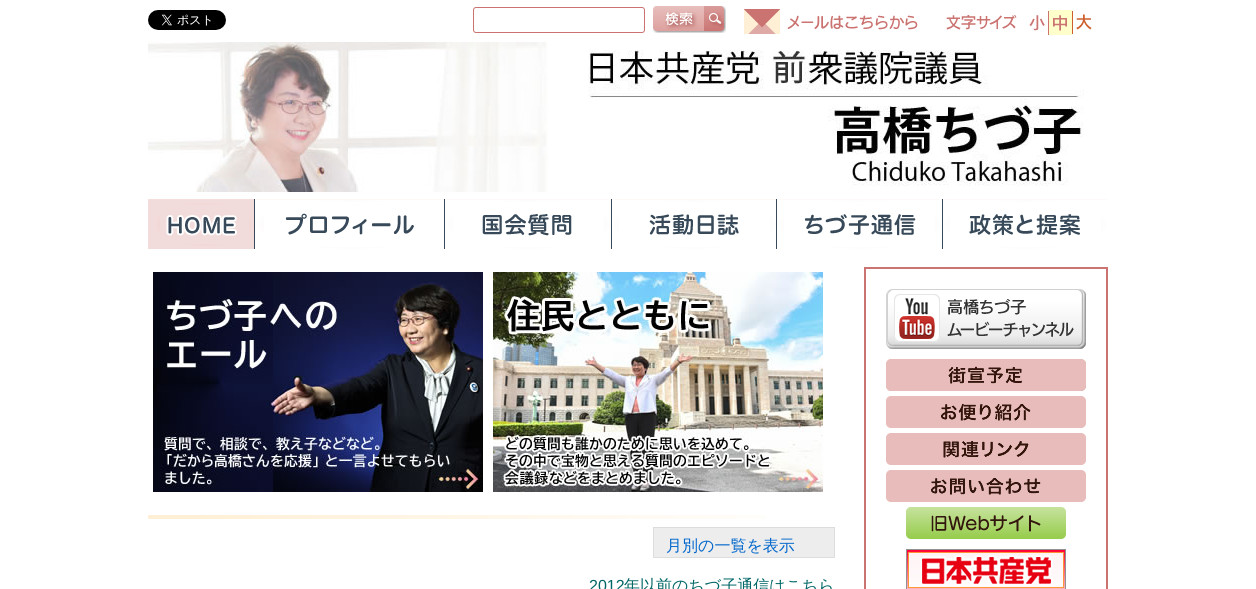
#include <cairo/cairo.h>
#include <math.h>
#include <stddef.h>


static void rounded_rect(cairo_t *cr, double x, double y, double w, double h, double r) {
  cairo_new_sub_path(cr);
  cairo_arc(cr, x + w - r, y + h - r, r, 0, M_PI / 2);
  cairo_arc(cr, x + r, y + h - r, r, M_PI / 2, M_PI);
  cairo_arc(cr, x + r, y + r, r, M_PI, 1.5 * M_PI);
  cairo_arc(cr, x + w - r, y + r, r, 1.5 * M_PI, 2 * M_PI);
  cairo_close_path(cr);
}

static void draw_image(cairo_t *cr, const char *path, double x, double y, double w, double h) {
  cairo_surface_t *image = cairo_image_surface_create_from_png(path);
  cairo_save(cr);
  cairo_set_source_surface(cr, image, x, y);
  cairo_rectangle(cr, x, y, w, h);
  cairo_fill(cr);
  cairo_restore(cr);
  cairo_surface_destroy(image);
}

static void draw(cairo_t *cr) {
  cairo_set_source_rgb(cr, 1, 1, 1);
  cairo_paint(cr);
  draw_image(cr, "images/1.png", 148, 10, 78, 20);
  rounded_rect(cr, 473.5, 7.5, 171, 25, 2.5);
  cairo_set_source_rgb(cr, 202 / 255.0, 115 / 255.0, 113 / 255.0);
  cairo_set_line_width(cr, 1);
  cairo_stroke(cr);
  draw_image(cr, "images/2.png", 653, 6, 73, 27);
  draw_image(cr, "images/3.png", 744, 9, 174, 25);
  draw_image(cr, "images/4.png", 1072, 34, 19, 1);
  draw_image(cr, "images/5.png", 946, 15, 71, 15);
  draw_image(cr, "images/6.png", 1028, 11, 21, 24);
  draw_image(cr, "images/7.png", 1049, 10, 23, 25);
  draw_image(cr, "images/8.png", 1072, 11, 20, 23);
  draw_image(cr, "images/9.png", 148, 42, 936, 150);
  draw_image(cr, "images/10.png", 148, 199, 959, 50);
  draw_image(cr, "images/11.png", 160, 205, 89, 39);
  draw_image(cr, "images/12.png", 264, 202, 180, 45);
  draw_image(cr, "images/13.png", 453, 202, 151, 45);
  draw_image(cr, "images/14.png", 619, 202, 151, 45);
  draw_image(cr, "images/15.png", 784, 202, 151, 45);
  draw_image(cr, "images/16.png", 950, 202, 151, 45);
  draw_image(cr, "images/17.png", 153, 272, 330, 220);
  draw_image(cr, "images/18.png", 493, 272, 330, 220);
  draw_image(cr, "images/19.png", 148, 515, 618, 4);
  cairo_set_source_rgb(cr, 237 / 255.0, 237 / 255.0, 237 / 255.0);
  cairo_rectangle(cr, 653.5, 527.5, 181, 30);
  cairo_fill_preserve(cr);
  cairo_set_source_rgb(cr, 221 / 255.0, 221 / 255.0, 221 / 255.0);
  cairo_stroke(cr);
  cairo_rectangle(cr, 865, 268, 242, 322);
  cairo_set_source_rgb(cr, 202 / 255.0, 115 / 255.0, 113 / 255.0);
  cairo_set_line_width(cr, 2);
  cairo_stroke(cr);
  draw_image(cr, "images/20.png", 886, 289, 200, 60);
  draw_image(cr, "images/21.png", 886, 359, 200, 32);
  draw_image(cr, "images/22.png", 886, 396, 200, 32);
  draw_image(cr, "images/23.png", 886, 433, 200, 32);
  draw_image(cr, "images/24.png", 886, 470, 200, 32);
  draw_image(cr, "images/25.png", 906, 507, 160, 32);
  draw_image(cr, "images/26.png", 906, 549, 160, 40);
  cairo_select_font_face(cr, "WenQuanYi Zen Hei Medium", CAIRO_FONT_SLANT_NORMAL, CAIRO_FONT_WEIGHT_NORMAL);
  cairo_set_font_size(cr, 16);
  cairo_set_source_rgb(cr, 0, 102 / 255.0, 204 / 255.0);
  cairo_move_to(cr, 666, 551);
  cairo_show_text(cr, "月別の一覧を表示");
  cairo_select_font_face(cr, "Liberation Sans", CAIRO_FONT_SLANT_NORMAL, CAIRO_FONT_WEIGHT_NORMAL);
  cairo_set_source_rgb(cr, 0, 102 / 255.0, 102 / 255.0);
  cairo_move_to(cr, 589, 591);
  cairo_show_text(cr, "2012");
  cairo_select_font_face(cr, "WenQuanYi Zen Hei Medium", CAIRO_FONT_SLANT_NORMAL, CAIRO_FONT_WEIGHT_NORMAL);
  cairo_move_to(cr, 624, 591);
  cairo_show_text(cr, "年以前のちづ子通信はこちら");
}

int main(void) {
  cairo_surface_t *surface = cairo_image_surface_create(CAIRO_FORMAT_RGB24, 1256, 589);
  cairo_t *cr = cairo_create(surface);
  cairo_font_options_t *options = cairo_font_options_create();
  cairo_font_options_set_hint_metrics(options, CAIRO_HINT_METRICS_OFF);
  cairo_font_options_set_hint_style(options, CAIRO_HINT_STYLE_NONE);
  cairo_set_font_options(cr, options);
  cairo_set_miter_limit(cr, 4);
  draw(cr);
  cairo_surface_write_to_png(surface, "out.png");
  cairo_font_options_destroy(options);
  cairo_destroy(cr);
  cairo_surface_destroy(surface);
  return 0;
}
